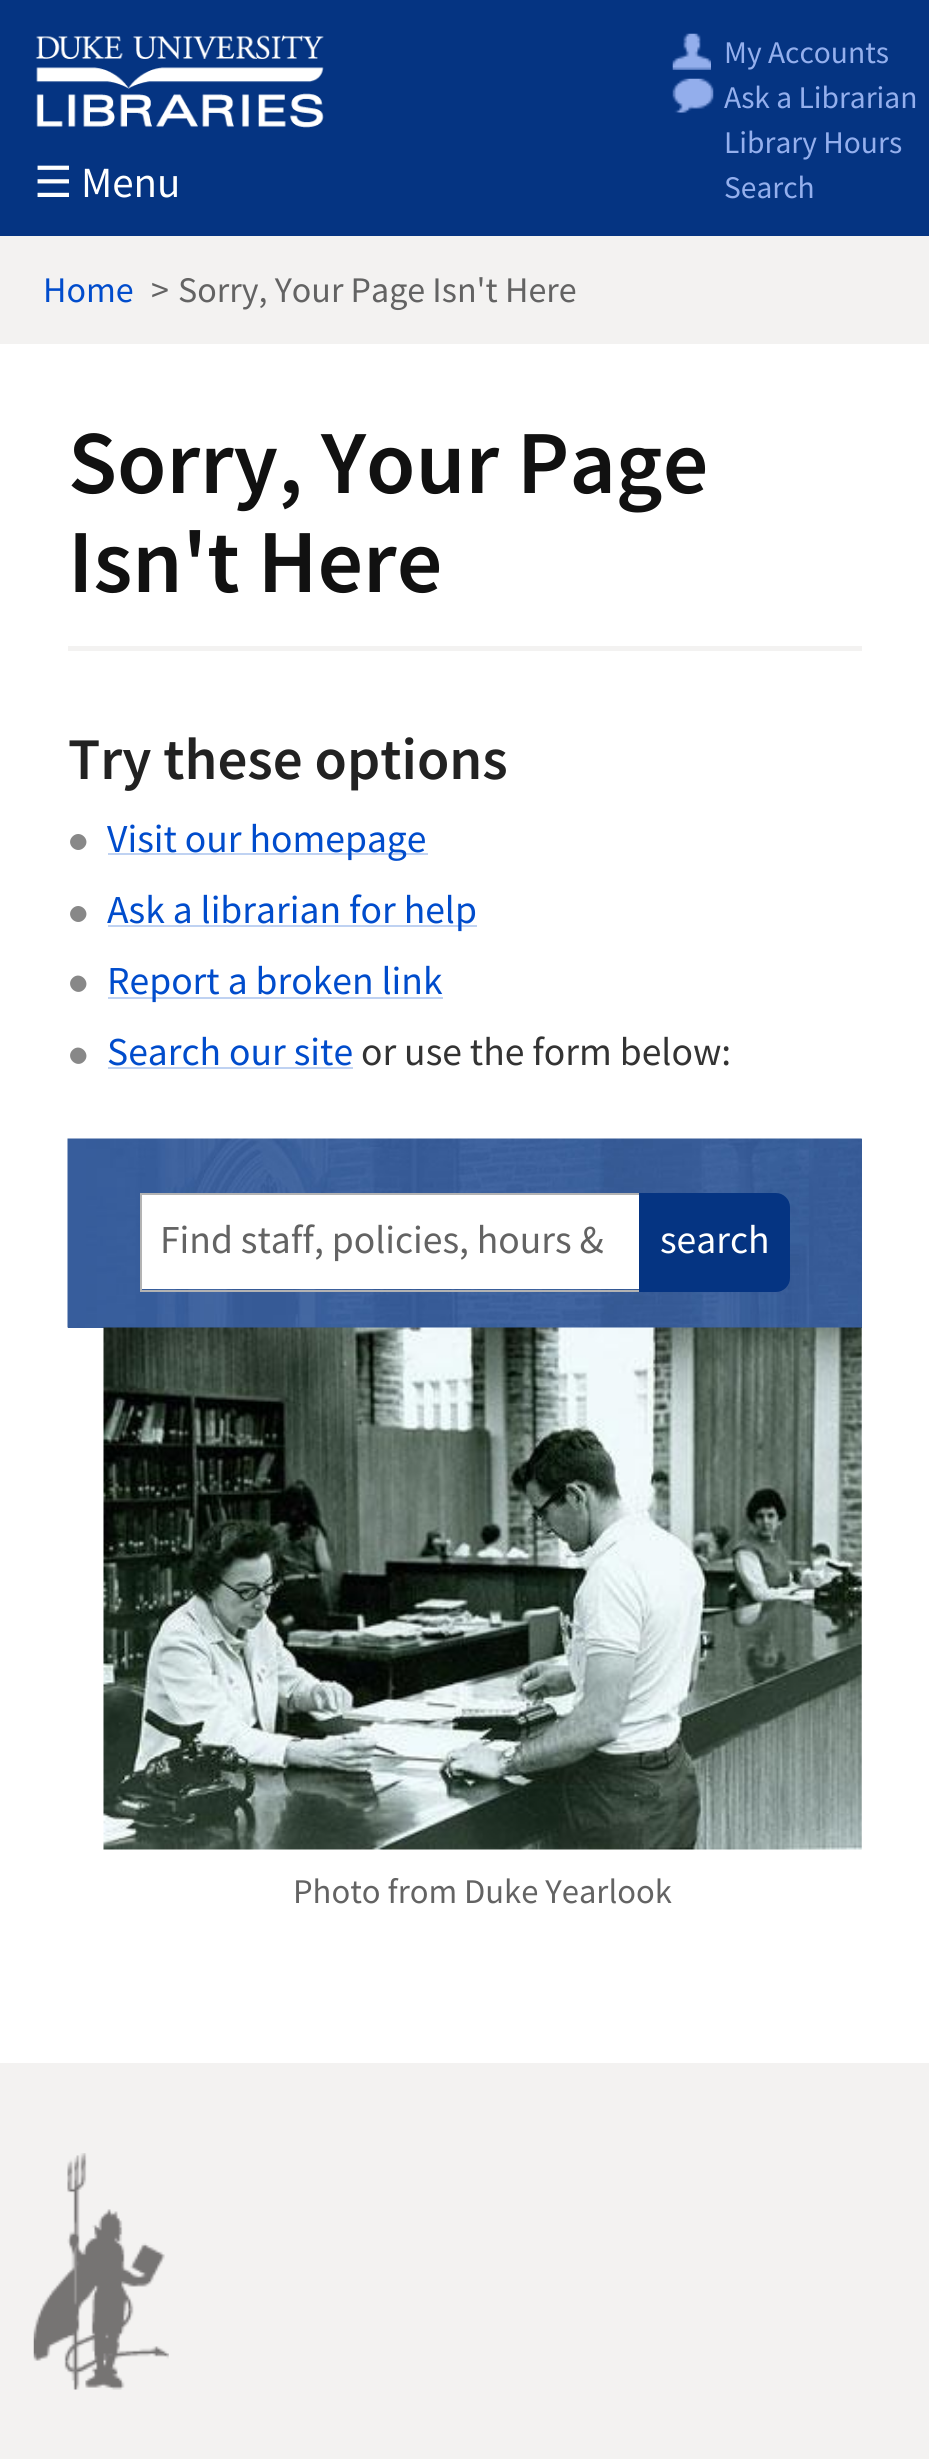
#include <cairo/cairo.h>
#include <math.h>
#include <stddef.h>


static void draw_image(cairo_t *cr, const char *path, double x, double y, double w, double h) {
  cairo_surface_t *image = cairo_image_surface_create_from_png(path);
  cairo_save(cr);
  cairo_set_source_surface(cr, image, x, y);
  cairo_rectangle(cr, x, y, w, h);
  cairo_fill(cr);
  cairo_restore(cr);
  cairo_surface_destroy(image);
}

static void draw(cairo_t *cr) {
  cairo_set_source_rgb(cr, 243 / 255.0, 242 / 255.0, 241 / 255.0);
  cairo_paint(cr);
  cairo_set_source_rgb(cr, 5 / 255.0, 52 / 255.0, 130 / 255.0);
  cairo_rectangle(cr, 0, 0, 929, 236);
  cairo_fill(cr);
  draw_image(cr, "images/1.png", 35, 35, 289, 93);
  draw_image(cr, "images/2.png", 672, 33, 39, 37);
  draw_image(cr, "images/3.png", 672, 78, 42, 35);
  cairo_set_source_rgb(cr, 1, 1, 1);
  cairo_rectangle(cr, 0, 344, 929, 1719);
  cairo_fill(cr);
  cairo_set_source_rgb(cr, 243 / 255.0, 242 / 255.0, 241 / 255.0);
  cairo_rectangle(cr, 68, 646, 794, 5);
  cairo_fill(cr);
  cairo_set_source_rgb(cr, 136 / 255.0, 136 / 255.0, 136 / 255.0);
  cairo_new_path(cr);
  cairo_move_to(cr, 72.5, 836.5);
  cairo_curve_to(cr, 80, 829, 91.5, 840, 84, 847.5);
  cairo_curve_to(cr, 76.5, 855, 65, 844, 72.5, 836.5);
  cairo_close_path(cr);
  cairo_fill(cr);
  cairo_set_source_rgb(cr, 191 / 255.0, 210 / 255.0, 242 / 255.0);
  cairo_rectangle(cr, 108, 853, 320, 2);
  cairo_fill(cr);
  cairo_set_source_rgb(cr, 136 / 255.0, 136 / 255.0, 136 / 255.0);
  cairo_new_path(cr);
  cairo_move_to(cr, 72.5, 908.5);
  cairo_curve_to(cr, 80, 901, 91.5, 912, 84, 919.5);
  cairo_curve_to(cr, 76.5, 927, 65, 916, 72.5, 908.5);
  cairo_close_path(cr);
  cairo_fill(cr);
  cairo_set_source_rgb(cr, 191 / 255.0, 210 / 255.0, 242 / 255.0);
  cairo_rectangle(cr, 108, 925, 369, 2);
  cairo_fill(cr);
  cairo_set_source_rgb(cr, 136 / 255.0, 136 / 255.0, 136 / 255.0);
  cairo_new_path(cr);
  cairo_move_to(cr, 72.5, 978);
  cairo_curve_to(cr, 80, 970.5, 91.5, 982, 84, 989.5);
  cairo_curve_to(cr, 76.5, 997, 65, 985.5, 72.5, 978);
  cairo_close_path(cr);
  cairo_fill(cr);
  cairo_set_source_rgb(cr, 191 / 255.0, 210 / 255.0, 242 / 255.0);
  cairo_rectangle(cr, 108, 997, 335, 2);
  cairo_fill(cr);
  cairo_set_source_rgb(cr, 136 / 255.0, 136 / 255.0, 136 / 255.0);
  cairo_new_path(cr);
  cairo_move_to(cr, 72.5, 1050);
  cairo_curve_to(cr, 80, 1042.5, 91.5, 1054, 84, 1061.5);
  cairo_curve_to(cr, 76.5, 1069, 65, 1057.5, 72.5, 1050);
  cairo_close_path(cr);
  cairo_fill(cr);
  cairo_set_source_rgb(cr, 191 / 255.0, 210 / 255.0, 242 / 255.0);
  cairo_rectangle(cr, 108, 1067, 245, 2);
  cairo_fill(cr);
  cairo_set_source_rgb(cr, 55 / 255.0, 93 / 255.0, 155 / 255.0);
  cairo_rectangle(cr, 68, 1139, 794, 189);
  cairo_fill(cr);
  draw_image(cr, "images/4.png", 67, 1138, 795, 190);
  cairo_set_source_rgb(cr, 1, 1, 1);
  cairo_rectangle(cr, 142, 1195, 497, 94);
  cairo_fill(cr);
  cairo_rectangle(cr, 141, 1194, 499, 97);
  cairo_set_source_rgb(cr, 179 / 255.0, 179 / 255.0, 179 / 255.0);
  cairo_stroke(cr);
  cairo_set_source_rgb(cr, 5 / 255.0, 52 / 255.0, 130 / 255.0);
  cairo_new_path(cr);
  cairo_move_to(cr, 640, 1194);
  cairo_line_to(cr, 776, 1194);
  cairo_curve_to(cr, 783, 1194, 789, 1200, 789, 1207);
  cairo_line_to(cr, 789, 1278);
  cairo_curve_to(cr, 789, 1285, 783, 1291, 776, 1291);
  cairo_line_to(cr, 640, 1291);
  cairo_close_path(cr);
  cairo_fill_preserve(cr);
  cairo_stroke(cr);
  draw_image(cr, "images/5.png", 103, 1327, 759, 523);
  draw_image(cr, "images/6.png", 33, 2153, 136, 237);
  cairo_select_font_face(cr, "DejaVu Sans", CAIRO_FONT_SLANT_NORMAL, CAIRO_FONT_WEIGHT_NORMAL);
  cairo_set_font_size(cr, 43);
  cairo_set_source_rgb(cr, 1, 1, 1);
  cairo_move_to(cr, 34, 197);
  cairo_show_text(cr, "☰");
  cairo_select_font_face(cr, "Source Sans Pro", CAIRO_FONT_SLANT_NORMAL, CAIRO_FONT_WEIGHT_NORMAL);
  cairo_move_to(cr, 81, 197);
  cairo_show_text(cr, "Menu");
  cairo_set_font_size(cr, 31.5);
  cairo_set_source_rgb(cr, 148 / 255.0, 175 / 255.0, 237 / 255.0);
  cairo_move_to(cr, 724, 63);
  cairo_show_text(cr, "My Accounts");
  cairo_move_to(cr, 724, 108);
  cairo_show_text(cr, "Ask a Librarian");
  cairo_move_to(cr, 724, 153);
  cairo_show_text(cr, "Library Hours");
  cairo_move_to(cr, 724, 198);
  cairo_show_text(cr, "Search");
  cairo_set_font_size(cr, 36);
  cairo_set_source_rgb(cr, 0, 76 / 255.0, 204 / 255.0);
  cairo_move_to(cr, 43, 302);
  cairo_show_text(cr, "Home");
  cairo_set_source_rgb(cr, 99 / 255.0, 99 / 255.0, 99 / 255.0);
  cairo_move_to(cr, 151, 302);
  cairo_show_text(cr, ">");
  cairo_move_to(cr, 178, 302);
  cairo_show_text(cr, "Sorry, Your Page Isn't Here");
  cairo_select_font_face(cr, "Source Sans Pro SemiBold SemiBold", CAIRO_FONT_SLANT_NORMAL, CAIRO_FONT_WEIGHT_NORMAL);
  cairo_set_font_size(cr, 90);
  cairo_set_source_rgb(cr, 17 / 255.0, 17 / 255.0, 17 / 255.0);
  cairo_move_to(cr, 68, 493);
  cairo_show_text(cr, "Sorry, Your Page");
  cairo_move_to(cr, 68, 592);
  cairo_show_text(cr, "Isn't Here");
  cairo_set_font_size(cr, 59);
  cairo_set_source_rgb(cr, 34 / 255.0, 34 / 255.0, 34 / 255.0);
  cairo_move_to(cr, 68, 779);
  cairo_show_text(cr, "Try these options");
  cairo_select_font_face(cr, "Source Sans Pro", CAIRO_FONT_SLANT_NORMAL, CAIRO_FONT_WEIGHT_NORMAL);
  cairo_set_font_size(cr, 39.6);
  cairo_set_source_rgb(cr, 0, 76 / 255.0, 204 / 255.0);
  cairo_move_to(cr, 107, 852);
  cairo_show_text(cr, "Visit our homepage");
  cairo_move_to(cr, 107, 923);
  cairo_show_text(cr, "Ask a librarian for help");
  cairo_move_to(cr, 107, 994);
  cairo_show_text(cr, "Report a broken link");
  cairo_move_to(cr, 107, 1065);
  cairo_show_text(cr, "Search our site");
  cairo_set_source_rgb(cr, 51 / 255.0, 51 / 255.0, 51 / 255.0);
  cairo_move_to(cr, 361, 1065);
  cairo_show_text(cr, "or use the form below:");
  cairo_set_source_rgb(cr, 99 / 255.0, 99 / 255.0, 99 / 255.0);
  cairo_move_to(cr, 160, 1253);
  cairo_show_text(cr, "Find staff, policies, hours &");
  cairo_set_source_rgb(cr, 1, 1, 1);
  cairo_move_to(cr, 660, 1253);
  cairo_show_text(cr, "search");
  cairo_set_font_size(cr, 34.6);
  cairo_set_source_rgb(cr, 99 / 255.0, 99 / 255.0, 99 / 255.0);
  cairo_move_to(cr, 293, 1903);
  cairo_show_text(cr, "Photo from Duke Yearlook");
}

int main(void) {
  cairo_surface_t *surface = cairo_image_surface_create(CAIRO_FORMAT_RGB24, 929, 2459);
  cairo_t *cr = cairo_create(surface);
  cairo_font_options_t *options = cairo_font_options_create();
  cairo_font_options_set_hint_metrics(options, CAIRO_HINT_METRICS_OFF);
  cairo_font_options_set_hint_style(options, CAIRO_HINT_STYLE_NONE);
  cairo_set_font_options(cr, options);
  cairo_set_miter_limit(cr, 4);
  draw(cr);
  cairo_surface_write_to_png(surface, "out.png");
  cairo_font_options_destroy(options);
  cairo_destroy(cr);
  cairo_surface_destroy(surface);
  return 0;
}
